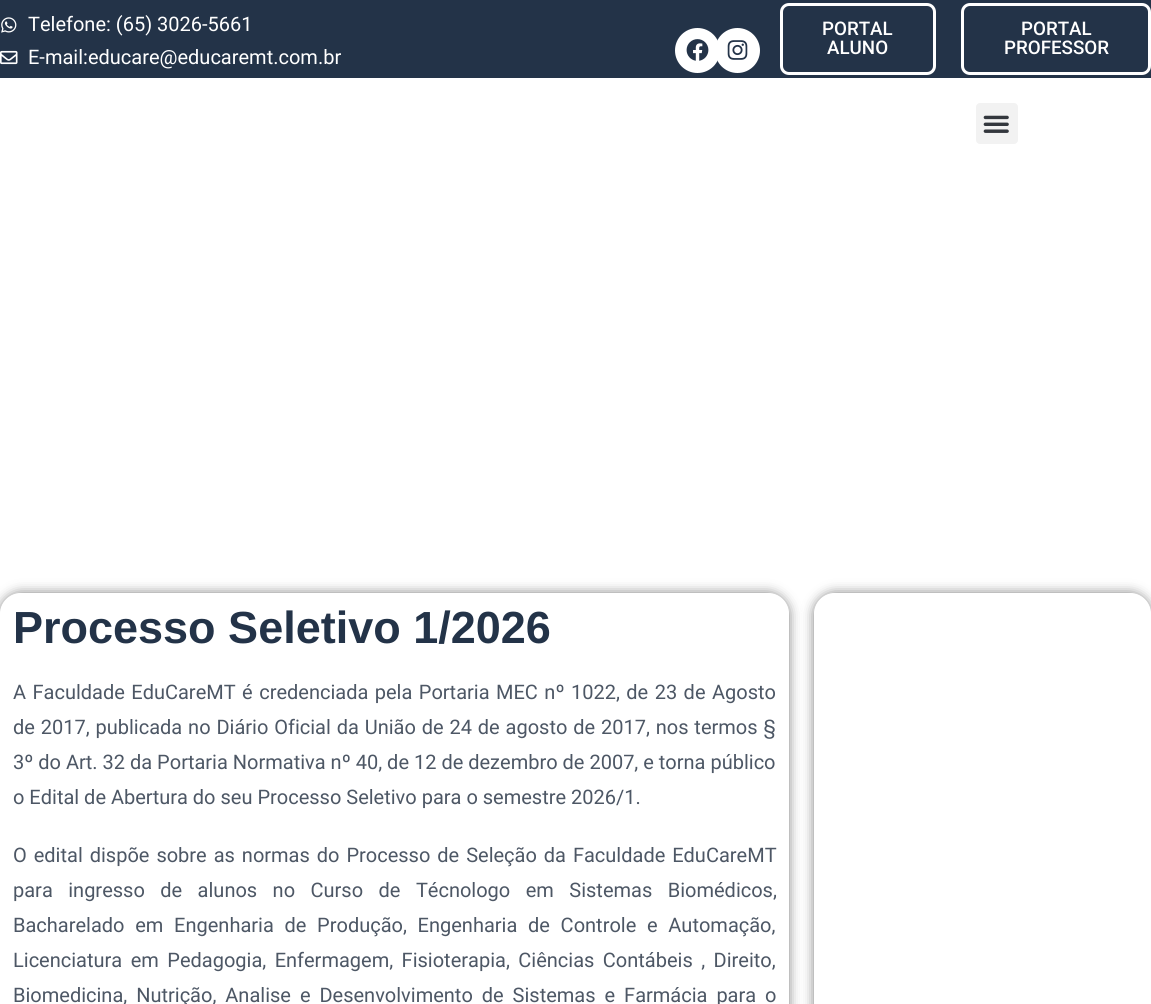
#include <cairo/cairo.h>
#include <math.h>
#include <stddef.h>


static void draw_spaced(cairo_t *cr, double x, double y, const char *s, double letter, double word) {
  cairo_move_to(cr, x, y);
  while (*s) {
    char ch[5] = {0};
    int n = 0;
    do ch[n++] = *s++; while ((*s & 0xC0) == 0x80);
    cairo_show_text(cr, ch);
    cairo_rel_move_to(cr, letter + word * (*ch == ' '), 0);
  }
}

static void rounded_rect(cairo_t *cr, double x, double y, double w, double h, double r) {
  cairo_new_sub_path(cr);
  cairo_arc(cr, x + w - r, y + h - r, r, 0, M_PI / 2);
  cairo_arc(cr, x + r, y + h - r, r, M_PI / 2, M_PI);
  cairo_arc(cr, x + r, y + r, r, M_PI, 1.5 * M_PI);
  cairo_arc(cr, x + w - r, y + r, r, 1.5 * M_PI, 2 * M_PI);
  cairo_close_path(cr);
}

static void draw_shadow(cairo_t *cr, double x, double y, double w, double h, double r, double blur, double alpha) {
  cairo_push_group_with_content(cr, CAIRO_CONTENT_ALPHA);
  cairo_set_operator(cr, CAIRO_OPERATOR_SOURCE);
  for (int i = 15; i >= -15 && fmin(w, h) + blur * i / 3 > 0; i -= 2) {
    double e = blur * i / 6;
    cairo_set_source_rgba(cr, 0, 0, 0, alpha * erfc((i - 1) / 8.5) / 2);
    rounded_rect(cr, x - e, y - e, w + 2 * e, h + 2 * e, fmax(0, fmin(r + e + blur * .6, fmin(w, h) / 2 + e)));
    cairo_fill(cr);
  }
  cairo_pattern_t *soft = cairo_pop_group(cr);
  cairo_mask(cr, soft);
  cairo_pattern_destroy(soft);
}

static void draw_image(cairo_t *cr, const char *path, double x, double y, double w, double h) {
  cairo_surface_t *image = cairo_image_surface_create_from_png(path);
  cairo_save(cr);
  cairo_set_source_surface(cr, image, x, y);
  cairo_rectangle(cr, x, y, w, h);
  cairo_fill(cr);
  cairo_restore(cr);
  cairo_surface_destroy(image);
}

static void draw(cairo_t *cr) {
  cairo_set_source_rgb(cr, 1, 1, 1);
  cairo_paint(cr);
  cairo_set_source_rgb(cr, 35 / 255.0, 51 / 255.0, 72 / 255.0);
  cairo_rectangle(cr, 0, 0, 1151, 78);
  cairo_fill(cr);
  draw_image(cr, "images/1.png", 1, 17, 16, 16);
  draw_image(cr, "images/2.png", 0, 50, 18, 15);
  cairo_set_source_rgb(cr, 1, 1, 1);
  cairo_arc(cr, 697.5, 50.5, 22.5, 0, 2 * M_PI);
  cairo_fill(cr);
  draw_image(cr, "images/3.png", 686, 39, 23, 22);
  cairo_arc(cr, 737.5, 50.5, 22.5, 0, 2 * M_PI);
  cairo_fill(cr);
  draw_image(cr, "images/4.png", 727, 40, 21, 20);
  rounded_rect(cr, 781.5, 4.5, 153, 69, 7.5);
  cairo_set_line_width(cr, 3);
  cairo_stroke(cr);
  rounded_rect(cr, 962.5, 4.5, 187, 69, 7.5);
  cairo_stroke(cr);
  cairo_set_source_rgb(cr, 242 / 255.0, 242 / 255.0, 242 / 255.0);
  rounded_rect(cr, 976, 103, 42, 41, 4);
  cairo_fill(cr);
  draw_image(cr, "images/5.png", 983, 115, 26, 18);
  cairo_save(cr);
  cairo_set_fill_rule(cr, CAIRO_FILL_RULE_EVEN_ODD);
  cairo_new_path(cr);
  cairo_move_to(cr, 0, 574);
  cairo_line_to(cr, 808, 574);
  cairo_line_to(cr, 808, 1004);
  cairo_line_to(cr, 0, 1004);
  cairo_close_path(cr);
  cairo_move_to(cr, 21, 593);
  cairo_line_to(cr, 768, 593);
  cairo_curve_to(cr, 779.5, 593, 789, 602.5, 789, 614);
  cairo_line_to(cr, 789, 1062);
  cairo_curve_to(cr, 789, 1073.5, 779.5, 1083, 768, 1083);
  cairo_line_to(cr, 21, 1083);
  cairo_curve_to(cr, 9.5, 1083, 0, 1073.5, 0, 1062);
  cairo_line_to(cr, 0, 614);
  cairo_curve_to(cr, 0, 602.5, 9.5, 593, 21, 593);
  cairo_close_path(cr);
  cairo_clip(cr);
  cairo_set_source_rgb(cr, 0, 0, 0);
  draw_shadow(cr, 0, 593, 789, 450, 21, 6, 0.5);
  cairo_restore(cr);
  cairo_save(cr);
  cairo_set_fill_rule(cr, CAIRO_FILL_RULE_EVEN_ODD);
  cairo_new_path(cr);
  cairo_move_to(cr, 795, 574);
  cairo_line_to(cr, 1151, 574);
  cairo_line_to(cr, 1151, 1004);
  cairo_line_to(cr, 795, 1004);
  cairo_close_path(cr);
  cairo_move_to(cr, 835, 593);
  cairo_line_to(cr, 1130, 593);
  cairo_curve_to(cr, 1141.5, 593, 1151, 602.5, 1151, 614);
  cairo_line_to(cr, 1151, 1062);
  cairo_curve_to(cr, 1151, 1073.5, 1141.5, 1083, 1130, 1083);
  cairo_line_to(cr, 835, 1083);
  cairo_curve_to(cr, 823.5, 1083, 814, 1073.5, 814, 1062);
  cairo_line_to(cr, 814, 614);
  cairo_curve_to(cr, 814, 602.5, 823.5, 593, 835, 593);
  cairo_close_path(cr);
  cairo_clip(cr);
  cairo_set_source_rgb(cr, 0, 0, 0);
  draw_shadow(cr, 814, 593, 337, 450, 21, 6, 0.5);
  cairo_restore(cr);
  cairo_select_font_face(cr, "Roboto", CAIRO_FONT_SLANT_NORMAL, CAIRO_FONT_WEIGHT_NORMAL);
  cairo_set_font_size(cr, 20);
  cairo_set_source_rgb(cr, 1, 1, 1);
  cairo_move_to(cr, 28, 31);
  cairo_show_text(cr, "Telefone: (65) 3026-5661");
  cairo_move_to(cr, 28, 64);
  cairo_show_text(cr, "E-mail:educare@educaremt.com.br");
  cairo_select_font_face(cr, "Roboto Medium", CAIRO_FONT_SLANT_NORMAL, CAIRO_FONT_WEIGHT_NORMAL);
  cairo_set_font_size(cr, 18.75);
  cairo_move_to(cr, 822, 35);
  cairo_show_text(cr, "PORTAL");
  cairo_move_to(cr, 827, 54);
  cairo_show_text(cr, "ALUNO");
  cairo_move_to(cr, 1021, 35);
  cairo_show_text(cr, "PORTAL");
  cairo_move_to(cr, 1004, 54);
  cairo_show_text(cr, "PROFESSOR");
  cairo_select_font_face(cr, "Liberation Sans", CAIRO_FONT_SLANT_NORMAL, CAIRO_FONT_WEIGHT_BOLD);
  cairo_set_font_size(cr, 45);
  cairo_set_source_rgb(cr, 35 / 255.0, 51 / 255.0, 72 / 255.0);
  cairo_move_to(cr, 13, 643);
  cairo_show_text(cr, "Processo Seletivo 1/2026");
  cairo_select_font_face(cr, "Roboto", CAIRO_FONT_SLANT_NORMAL, CAIRO_FONT_WEIGHT_NORMAL);
  cairo_set_font_size(cr, 20);
  cairo_set_source_rgb(cr, 77 / 255.0, 87 / 255.0, 101 / 255.0);
  draw_spaced(cr, 13, 699, "A Faculdade EduCareMT é credenciada pela Portaria MEC nº 1022, de 23 de Agosto", 0, 1.5);
  draw_spaced(cr, 13, 734, "de 2017, publicada no Diário Oficial da União de 24 de agosto de 2017, nos termos §", 0, 0.9);
  cairo_move_to(cr, 13, 769);
  cairo_show_text(cr, "3º do Art. 32 da Portaria Normativa nº 40, de 12 de dezembro de 2007, e torna público");
  cairo_move_to(cr, 13, 804);
  cairo_show_text(cr, "o Edital de Abertura do seu Processo Seletivo para o semestre 2026/1.");
  draw_spaced(cr, 13, 862, "O edital dispõe sobre as normas do Processo de Seleção da Faculdade EduCareMT", 0, 2);
  draw_spaced(cr, 13, 897, "para ingresso de alunos no Curso de Técnologo em Sistemas Biomédicos,", 0, 10.5);
  draw_spaced(cr, 13, 932, "Bacharelado em Engenharia de Produção, Engenharia de Controle e Automação,", 0, 5.75);
  draw_spaced(cr, 13, 967, "Licenciatura em Pedagogia, Enfermagem, Fisioterapia, Ciências Contábeis , Direito,", 0, 3.5);
  draw_spaced(cr, 13, 1002, "Biomedicina, Nutrição, Analise e Desenvolvimento de Sistemas e Farmácia para o", 0, 4);
}

int main(void) {
  cairo_surface_t *surface = cairo_image_surface_create(CAIRO_FORMAT_RGB24, 1151, 1004);
  cairo_t *cr = cairo_create(surface);
  cairo_font_options_t *options = cairo_font_options_create();
  cairo_font_options_set_hint_metrics(options, CAIRO_HINT_METRICS_OFF);
  cairo_font_options_set_hint_style(options, CAIRO_HINT_STYLE_NONE);
  cairo_set_font_options(cr, options);
  cairo_set_miter_limit(cr, 4);
  draw(cr);
  cairo_surface_write_to_png(surface, "out.png");
  cairo_font_options_destroy(options);
  cairo_destroy(cr);
  cairo_surface_destroy(surface);
  return 0;
}
